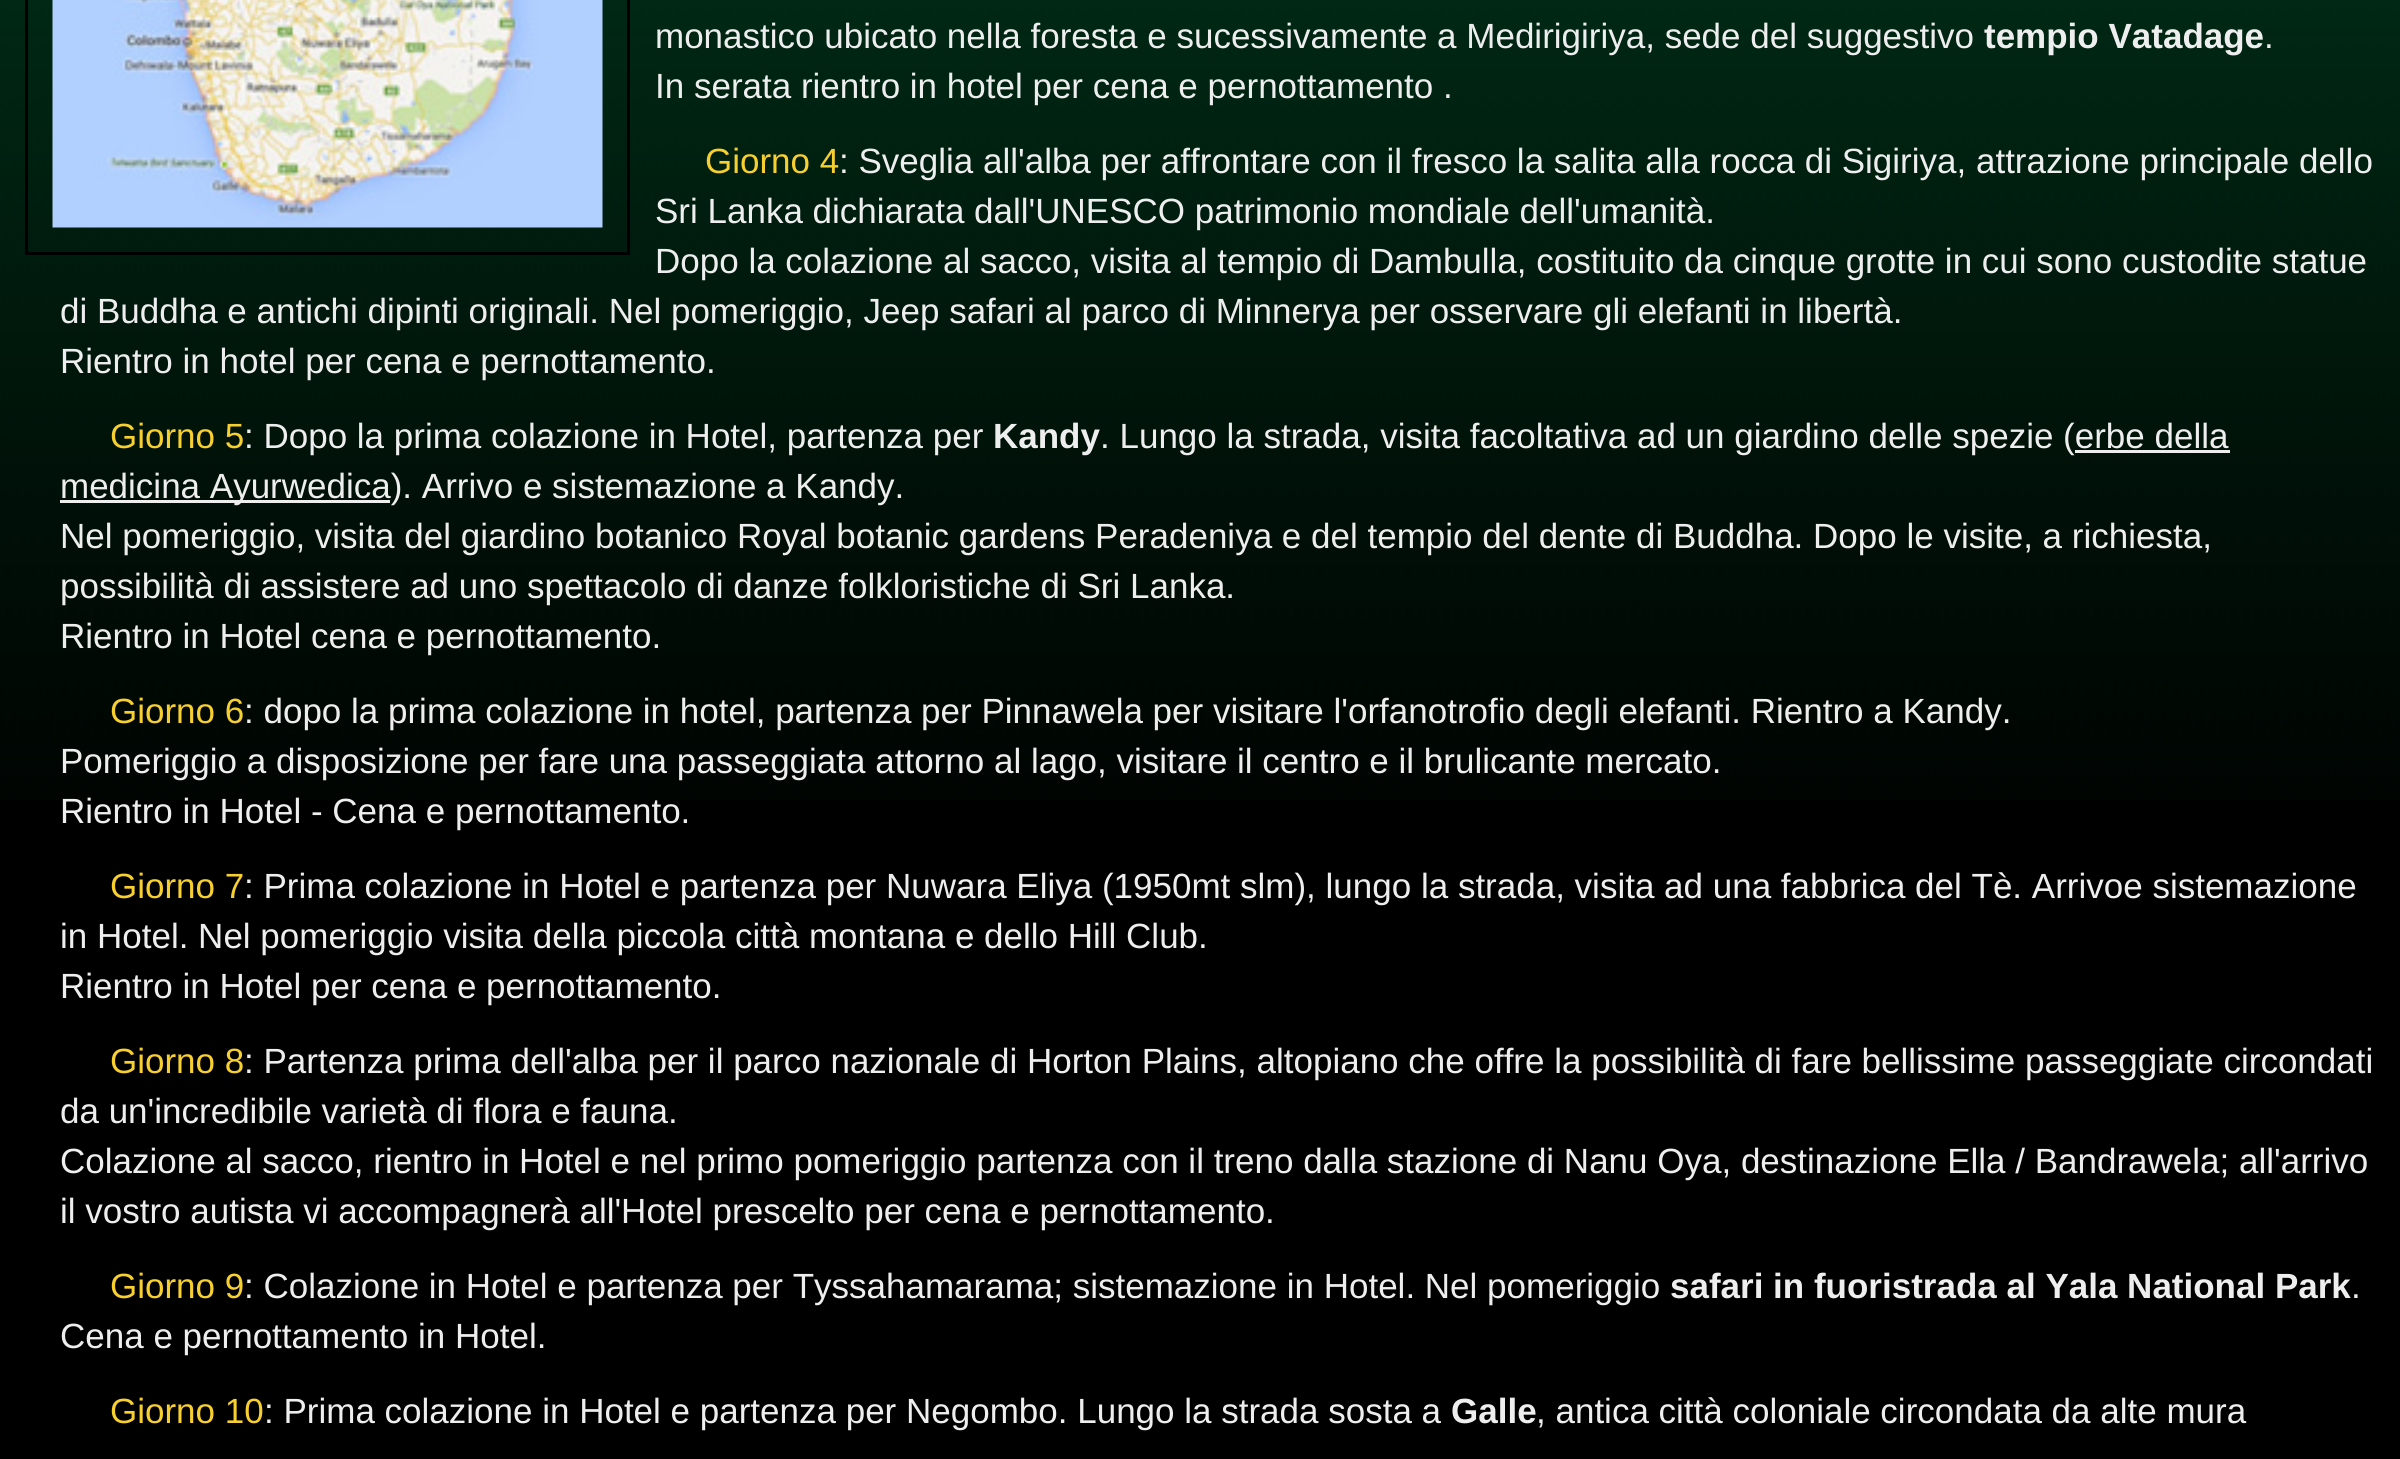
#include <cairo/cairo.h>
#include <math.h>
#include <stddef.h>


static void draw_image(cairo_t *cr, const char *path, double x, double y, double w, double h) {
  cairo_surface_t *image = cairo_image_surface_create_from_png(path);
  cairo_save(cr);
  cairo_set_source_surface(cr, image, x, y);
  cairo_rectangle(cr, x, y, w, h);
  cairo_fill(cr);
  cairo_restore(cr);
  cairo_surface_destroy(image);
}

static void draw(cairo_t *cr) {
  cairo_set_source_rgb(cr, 0, 0, 0);
  cairo_paint(cr);
  draw_image(cr, "images/1.png", 0, 0, 2400, 800);
  cairo_rectangle(cr, 26.5, -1.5, 602, 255);
  cairo_set_source_rgb(cr, 0, 0, 0);
  cairo_set_line_width(cr, 3);
  cairo_stroke(cr);
  draw_image(cr, "images/2.png", 52, 0, 551, 228);
  cairo_set_source_rgb(cr, 238 / 255.0, 238 / 255.0, 238 / 255.0);
  cairo_rectangle(cr, 2075, 450, 155, 3);
  cairo_fill(cr);
  cairo_rectangle(cr, 60, 500, 330, 3);
  cairo_fill(cr);
  cairo_select_font_face(cr, "Liberation Sans", CAIRO_FONT_SLANT_NORMAL, CAIRO_FONT_WEIGHT_NORMAL);
  cairo_set_font_size(cr, 35);
  cairo_move_to(cr, 655, 48);
  cairo_show_text(cr, "monastico ubicato nella foresta e sucessivamente a Medirigiriya, sede del suggestivo");
  cairo_select_font_face(cr, "Liberation Sans", CAIRO_FONT_SLANT_NORMAL, CAIRO_FONT_WEIGHT_BOLD);
  cairo_move_to(cr, 1984, 48);
  cairo_show_text(cr, "tempio Vatadage");
  cairo_select_font_face(cr, "Liberation Sans", CAIRO_FONT_SLANT_NORMAL, CAIRO_FONT_WEIGHT_NORMAL);
  cairo_move_to(cr, 2264, 48);
  cairo_show_text(cr, ".");
  cairo_move_to(cr, 655, 98);
  cairo_show_text(cr, "In serata rientro in hotel per cena e pernottamento .");
  cairo_set_source_rgb(cr, 247 / 255.0, 207 / 255.0, 46 / 255.0);
  cairo_move_to(cr, 705, 173);
  cairo_show_text(cr, "Giorno 4");
  cairo_set_source_rgb(cr, 238 / 255.0, 238 / 255.0, 238 / 255.0);
  cairo_move_to(cr, 839, 173);
  cairo_show_text(cr, ": Sveglia all'alba per affrontare con il fresco la salita alla rocca di Sigiriya, attrazione principale dello");
  cairo_move_to(cr, 655, 223);
  cairo_show_text(cr, "Sri Lanka dichiarata dall'UNESCO patrimonio mondiale dell'umanità.");
  cairo_move_to(cr, 655, 273);
  cairo_show_text(cr, "Dopo la colazione al sacco, visita al tempio di Dambulla, costituito da cinque grotte in cui sono custodite statue");
  cairo_move_to(cr, 60, 323);
  cairo_show_text(cr, "di Buddha e antichi dipinti originali. Nel pomeriggio, Jeep safari al parco di Minnerya per osservare gli elefanti in libertà.");
  cairo_move_to(cr, 60, 373);
  cairo_show_text(cr, "Rientro in hotel per cena e pernottamento.");
  cairo_set_source_rgb(cr, 247 / 255.0, 207 / 255.0, 46 / 255.0);
  cairo_move_to(cr, 110, 448);
  cairo_show_text(cr, "Giorno 5");
  cairo_set_source_rgb(cr, 238 / 255.0, 238 / 255.0, 238 / 255.0);
  cairo_move_to(cr, 244, 448);
  cairo_show_text(cr, ": Dopo la prima colazione in Hotel, partenza per");
  cairo_select_font_face(cr, "Liberation Sans", CAIRO_FONT_SLANT_NORMAL, CAIRO_FONT_WEIGHT_BOLD);
  cairo_move_to(cr, 993, 448);
  cairo_show_text(cr, "Kandy");
  cairo_select_font_face(cr, "Liberation Sans", CAIRO_FONT_SLANT_NORMAL, CAIRO_FONT_WEIGHT_NORMAL);
  cairo_move_to(cr, 1100, 448);
  cairo_show_text(cr, ". Lungo la strada, visita facoltativa ad un giardino delle spezie (erbe della");
  cairo_move_to(cr, 60, 498);
  cairo_show_text(cr, "medicina Ayurwedica). Arrivo e sistemazione a Kandy.");
  cairo_move_to(cr, 60, 548);
  cairo_show_text(cr, "Nel pomeriggio, visita del giardino botanico Royal botanic gardens Peradeniya e del tempio del dente di Buddha. Dopo le visite, a richiesta,");
  cairo_move_to(cr, 60, 598);
  cairo_show_text(cr, "possibilità di assistere ad uno spettacolo di danze folkloristiche di Sri Lanka.");
  cairo_move_to(cr, 60, 648);
  cairo_show_text(cr, "Rientro in Hotel cena e pernottamento.");
  cairo_set_source_rgb(cr, 247 / 255.0, 207 / 255.0, 46 / 255.0);
  cairo_move_to(cr, 110, 723);
  cairo_show_text(cr, "Giorno 6");
  cairo_set_source_rgb(cr, 238 / 255.0, 238 / 255.0, 238 / 255.0);
  cairo_move_to(cr, 244, 723);
  cairo_show_text(cr, ": dopo la prima colazione in hotel, partenza per Pinnawela per visitare l'orfanotrofio degli elefanti. Rientro a Kandy.");
  cairo_move_to(cr, 60, 773);
  cairo_show_text(cr, "Pomeriggio a disposizione per fare una passeggiata attorno al lago, visitare il centro e il brulicante mercato.");
  cairo_move_to(cr, 60, 823);
  cairo_show_text(cr, "Rientro in Hotel - Cena e pernottamento.");
  cairo_set_source_rgb(cr, 247 / 255.0, 207 / 255.0, 46 / 255.0);
  cairo_move_to(cr, 110, 898);
  cairo_show_text(cr, "Giorno 7");
  cairo_set_source_rgb(cr, 238 / 255.0, 238 / 255.0, 238 / 255.0);
  cairo_move_to(cr, 244, 898);
  cairo_show_text(cr, ": Prima colazione in Hotel e partenza per Nuwara Eliya (1950mt slm), lungo la strada, visita ad una fabbrica del Tè. Arrivoe sistemazione");
  cairo_move_to(cr, 60, 948);
  cairo_show_text(cr, "in Hotel. Nel pomeriggio visita della piccola città montana e dello Hill Club.");
  cairo_move_to(cr, 60, 998);
  cairo_show_text(cr, "Rientro in Hotel per cena e pernottamento.");
  cairo_set_source_rgb(cr, 247 / 255.0, 207 / 255.0, 46 / 255.0);
  cairo_move_to(cr, 110, 1073);
  cairo_show_text(cr, "Giorno 8");
  cairo_set_source_rgb(cr, 238 / 255.0, 238 / 255.0, 238 / 255.0);
  cairo_move_to(cr, 244, 1073);
  cairo_show_text(cr, ": Partenza prima dell'alba per il parco nazionale di Horton Plains, altopiano che offre la possibilità di fare bellissime passeggiate circondati");
  cairo_move_to(cr, 60, 1123);
  cairo_show_text(cr, "da un'incredibile varietà di flora e fauna.");
  cairo_move_to(cr, 60, 1173);
  cairo_show_text(cr, "Colazione al sacco, rientro in Hotel e nel primo pomeriggio partenza con il treno dalla stazione di Nanu Oya, destinazione Ella / Bandrawela; all'arrivo");
  cairo_move_to(cr, 60, 1223);
  cairo_show_text(cr, "il vostro autista vi accompagnerà all'Hotel prescelto per cena e pernottamento.");
  cairo_set_source_rgb(cr, 247 / 255.0, 207 / 255.0, 46 / 255.0);
  cairo_move_to(cr, 110, 1298);
  cairo_show_text(cr, "Giorno 9");
  cairo_set_source_rgb(cr, 238 / 255.0, 238 / 255.0, 238 / 255.0);
  cairo_move_to(cr, 244, 1298);
  cairo_show_text(cr, ": Colazione in Hotel e partenza per Tyssahamarama; sistemazione in Hotel. Nel pomeriggio");
  cairo_select_font_face(cr, "Liberation Sans", CAIRO_FONT_SLANT_NORMAL, CAIRO_FONT_WEIGHT_BOLD);
  cairo_move_to(cr, 1670, 1298);
  cairo_show_text(cr, "safari in fuoristrada al Yala National Park");
  cairo_select_font_face(cr, "Liberation Sans", CAIRO_FONT_SLANT_NORMAL, CAIRO_FONT_WEIGHT_NORMAL);
  cairo_move_to(cr, 2351, 1298);
  cairo_show_text(cr, ".");
  cairo_move_to(cr, 60, 1348);
  cairo_show_text(cr, "Cena e pernottamento in Hotel.");
  cairo_set_source_rgb(cr, 247 / 255.0, 207 / 255.0, 46 / 255.0);
  cairo_move_to(cr, 110, 1423);
  cairo_show_text(cr, "Giorno 10");
  cairo_set_source_rgb(cr, 238 / 255.0, 238 / 255.0, 238 / 255.0);
  cairo_move_to(cr, 264, 1423);
  cairo_show_text(cr, ": Prima colazione in Hotel e partenza per Negombo. Lungo la strada sosta a");
  cairo_select_font_face(cr, "Liberation Sans", CAIRO_FONT_SLANT_NORMAL, CAIRO_FONT_WEIGHT_BOLD);
  cairo_move_to(cr, 1451, 1423);
  cairo_show_text(cr, "Galle");
  cairo_select_font_face(cr, "Liberation Sans", CAIRO_FONT_SLANT_NORMAL, CAIRO_FONT_WEIGHT_NORMAL);
  cairo_move_to(cr, 1536, 1423);
  cairo_show_text(cr, ", antica città coloniale circondata da alte mura");
}

int main(void) {
  cairo_surface_t *surface = cairo_image_surface_create(CAIRO_FORMAT_RGB24, 2400, 1459);
  cairo_t *cr = cairo_create(surface);
  cairo_font_options_t *options = cairo_font_options_create();
  cairo_font_options_set_hint_metrics(options, CAIRO_HINT_METRICS_OFF);
  cairo_font_options_set_hint_style(options, CAIRO_HINT_STYLE_NONE);
  cairo_set_font_options(cr, options);
  cairo_set_miter_limit(cr, 4);
  draw(cr);
  cairo_surface_write_to_png(surface, "out.png");
  cairo_font_options_destroy(options);
  cairo_destroy(cr);
  cairo_surface_destroy(surface);
  return 0;
}
